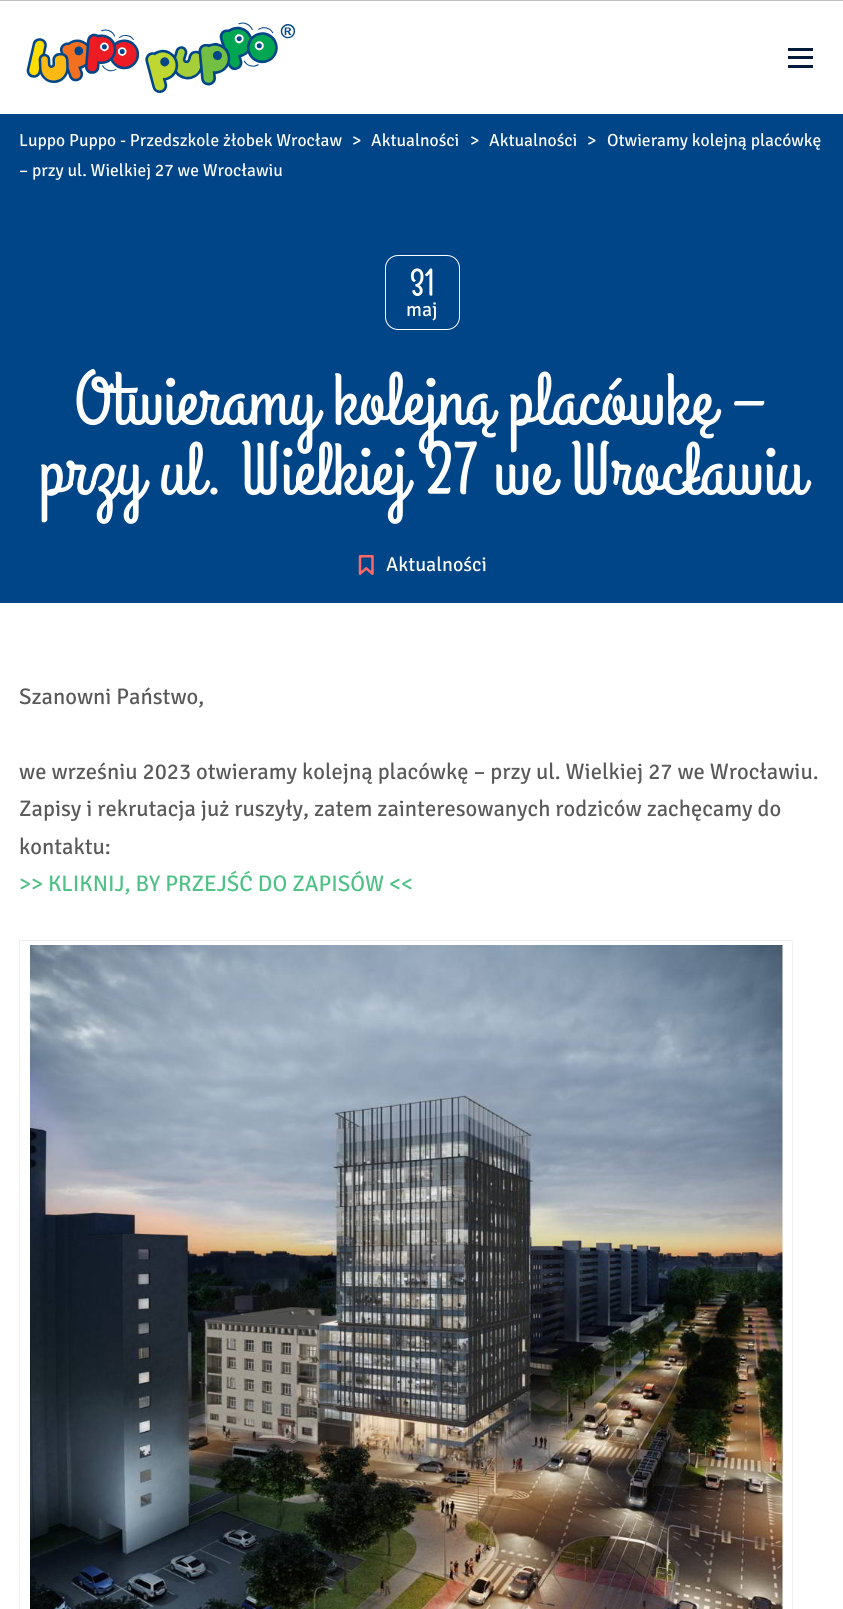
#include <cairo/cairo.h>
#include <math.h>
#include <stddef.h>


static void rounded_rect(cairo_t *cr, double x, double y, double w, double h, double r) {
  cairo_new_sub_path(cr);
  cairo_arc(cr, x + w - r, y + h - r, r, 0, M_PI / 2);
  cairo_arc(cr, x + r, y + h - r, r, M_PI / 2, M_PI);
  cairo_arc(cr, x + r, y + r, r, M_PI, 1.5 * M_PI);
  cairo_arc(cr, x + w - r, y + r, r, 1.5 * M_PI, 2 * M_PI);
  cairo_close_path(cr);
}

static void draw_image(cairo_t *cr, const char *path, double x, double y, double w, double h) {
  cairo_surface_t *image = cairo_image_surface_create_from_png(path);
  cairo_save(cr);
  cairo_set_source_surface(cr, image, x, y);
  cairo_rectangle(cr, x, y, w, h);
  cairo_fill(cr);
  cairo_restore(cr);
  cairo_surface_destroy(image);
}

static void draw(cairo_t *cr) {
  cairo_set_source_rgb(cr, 1, 1, 1);
  cairo_paint(cr);
  cairo_set_source_rgb(cr, 191 / 255.0, 191 / 255.0, 191 / 255.0);
  cairo_rectangle(cr, 0, 0, 843, 1);
  cairo_fill(cr);
  draw_image(cr, "images/1.png", 26, 22, 269, 71);
  cairo_set_source_rgb(cr, 1 / 255.0, 27 / 255.0, 58 / 255.0);
  cairo_rectangle(cr, 788, 56, 25, 3);
  cairo_fill(cr);
  cairo_rectangle(cr, 788, 48, 25, 3);
  cairo_fill(cr);
  cairo_rectangle(cr, 788, 65, 25, 3);
  cairo_fill(cr);
  cairo_set_source_rgb(cr, 0, 69 / 255.0, 136 / 255.0);
  cairo_rectangle(cr, 0, 114, 843, 489);
  cairo_fill(cr);
  rounded_rect(cr, 385.5, 255.5, 74, 74, 12.5);
  cairo_set_source_rgb(cr, 1, 1, 1);
  cairo_set_line_width(cr, 1);
  cairo_stroke(cr);
  draw_image(cr, "images/2.png", 358, 555, 16, 20);
  cairo_rectangle(cr, 19.5, 940.5, 773, 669);
  cairo_set_source_rgb(cr, 240 / 255.0, 240 / 255.0, 240 / 255.0);
  cairo_stroke(cr);
  draw_image(cr, "images/3.png", 30, 945, 753, 664);
  cairo_select_font_face(cr, "Signika Negative", CAIRO_FONT_SLANT_NORMAL, CAIRO_FONT_WEIGHT_NORMAL);
  cairo_set_font_size(cr, 17.5);
  cairo_set_source_rgb(cr, 1, 1, 1);
  cairo_move_to(cr, 19, 146);
  cairo_show_text(cr, "Luppo Puppo - Przedszkole żłobek Wrocław");
  cairo_move_to(cr, 352, 146);
  cairo_show_text(cr, ">");
  cairo_move_to(cr, 371, 146);
  cairo_show_text(cr, "Aktualności");
  cairo_move_to(cr, 470, 146);
  cairo_show_text(cr, ">");
  cairo_move_to(cr, 489, 146);
  cairo_show_text(cr, "Aktualności");
  cairo_move_to(cr, 587, 146);
  cairo_show_text(cr, ">");
  cairo_move_to(cr, 607, 146);
  cairo_show_text(cr, "Otwieramy kolejną placówkę");
  cairo_move_to(cr, 19, 176);
  cairo_show_text(cr, "– przy ul. Wielkiej 27 we Wrocławiu");
  cairo_select_font_face(cr, "Grand Hotel", CAIRO_FONT_SLANT_NORMAL, CAIRO_FONT_WEIGHT_NORMAL);
  cairo_set_font_size(cr, 38);
  cairo_move_to(cr, 410, 295);
  cairo_show_text(cr, "31");
  cairo_select_font_face(cr, "Signika Negative", CAIRO_FONT_SLANT_NORMAL, CAIRO_FONT_WEIGHT_NORMAL);
  cairo_set_font_size(cr, 20);
  cairo_move_to(cr, 406, 316);
  cairo_show_text(cr, "maj");
  cairo_select_font_face(cr, "Grand Hotel", CAIRO_FONT_SLANT_NORMAL, CAIRO_FONT_WEIGHT_NORMAL);
  cairo_set_font_size(cr, 75);
  cairo_move_to(cr, 75, 423);
  cairo_show_text(cr, "Otwieramy kolejną placówkę –");
  cairo_move_to(cr, 39, 493);
  cairo_show_text(cr, "przy ul. Wielkiej 27 we Wrocławiu");
  cairo_select_font_face(cr, "Signika Negative", CAIRO_FONT_SLANT_NORMAL, CAIRO_FONT_WEIGHT_NORMAL);
  cairo_set_font_size(cr, 20);
  cairo_move_to(cr, 386, 571);
  cairo_show_text(cr, "Aktualności");
  cairo_set_font_size(cr, 22.5);
  cairo_set_source_rgb(cr, 89 / 255.0, 89 / 255.0, 89 / 255.0);
  cairo_move_to(cr, 19, 704);
  cairo_show_text(cr, "Szanowni Państwo,");
  cairo_move_to(cr, 19, 779);
  cairo_show_text(cr, "we wrześniu 2023 otwieramy kolejną placówkę – przy ul. Wielkiej 27 we Wrocławiu.");
  cairo_move_to(cr, 19, 816);
  cairo_show_text(cr, "Zapisy i rekrutacja już ruszyły, zatem zainteresowanych rodziców zachęcamy do");
  cairo_move_to(cr, 19, 854);
  cairo_show_text(cr, "kontaktu:");
  cairo_set_source_rgb(cr, 79 / 255.0, 193 / 255.0, 134 / 255.0);
  cairo_move_to(cr, 19, 891);
  cairo_show_text(cr, ">> KLIKNIJ, BY PRZEJŚĆ DO ZAPISÓW <<");
}

int main(void) {
  cairo_surface_t *surface = cairo_image_surface_create(CAIRO_FORMAT_RGB24, 843, 1609);
  cairo_t *cr = cairo_create(surface);
  cairo_font_options_t *options = cairo_font_options_create();
  cairo_font_options_set_hint_metrics(options, CAIRO_HINT_METRICS_OFF);
  cairo_font_options_set_hint_style(options, CAIRO_HINT_STYLE_NONE);
  cairo_set_font_options(cr, options);
  cairo_set_miter_limit(cr, 4);
  draw(cr);
  cairo_surface_write_to_png(surface, "out.png");
  cairo_font_options_destroy(options);
  cairo_destroy(cr);
  cairo_surface_destroy(surface);
  return 0;
}
